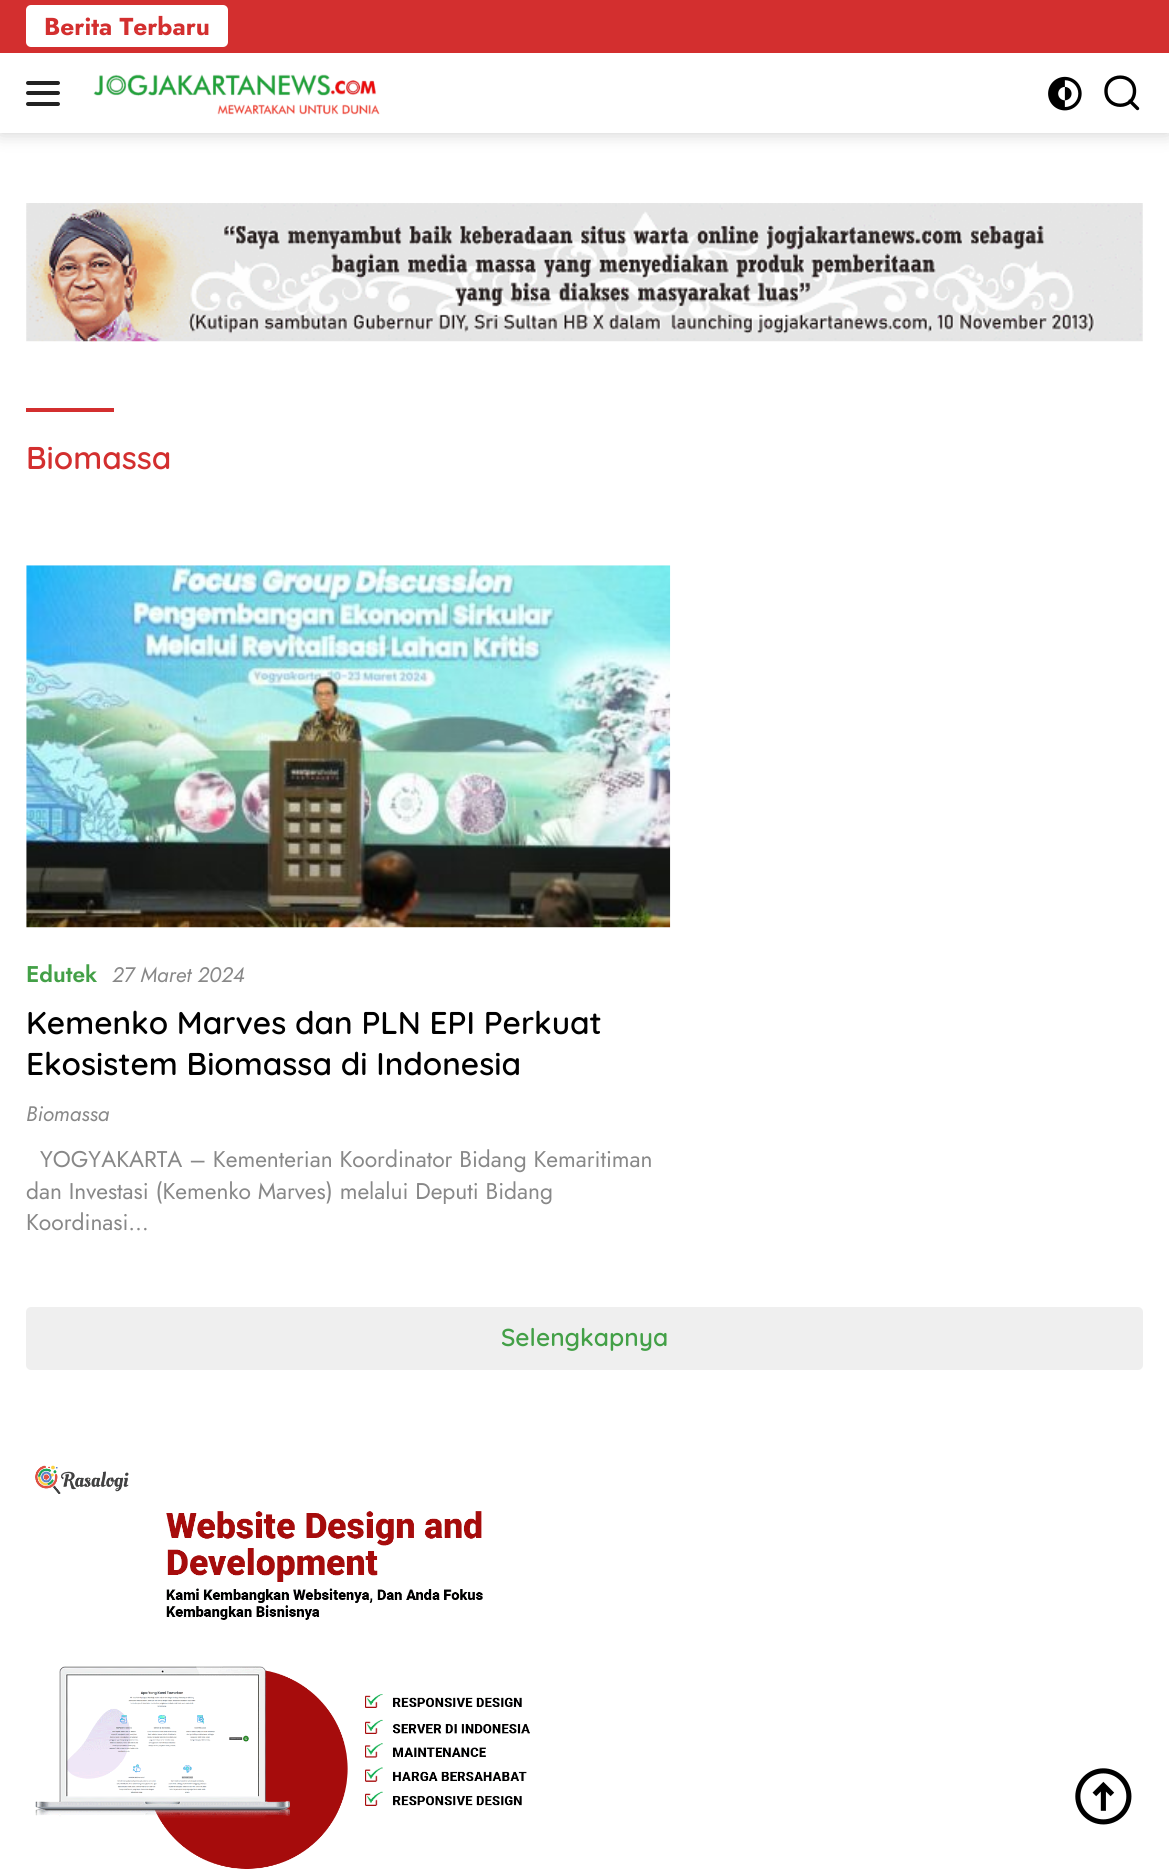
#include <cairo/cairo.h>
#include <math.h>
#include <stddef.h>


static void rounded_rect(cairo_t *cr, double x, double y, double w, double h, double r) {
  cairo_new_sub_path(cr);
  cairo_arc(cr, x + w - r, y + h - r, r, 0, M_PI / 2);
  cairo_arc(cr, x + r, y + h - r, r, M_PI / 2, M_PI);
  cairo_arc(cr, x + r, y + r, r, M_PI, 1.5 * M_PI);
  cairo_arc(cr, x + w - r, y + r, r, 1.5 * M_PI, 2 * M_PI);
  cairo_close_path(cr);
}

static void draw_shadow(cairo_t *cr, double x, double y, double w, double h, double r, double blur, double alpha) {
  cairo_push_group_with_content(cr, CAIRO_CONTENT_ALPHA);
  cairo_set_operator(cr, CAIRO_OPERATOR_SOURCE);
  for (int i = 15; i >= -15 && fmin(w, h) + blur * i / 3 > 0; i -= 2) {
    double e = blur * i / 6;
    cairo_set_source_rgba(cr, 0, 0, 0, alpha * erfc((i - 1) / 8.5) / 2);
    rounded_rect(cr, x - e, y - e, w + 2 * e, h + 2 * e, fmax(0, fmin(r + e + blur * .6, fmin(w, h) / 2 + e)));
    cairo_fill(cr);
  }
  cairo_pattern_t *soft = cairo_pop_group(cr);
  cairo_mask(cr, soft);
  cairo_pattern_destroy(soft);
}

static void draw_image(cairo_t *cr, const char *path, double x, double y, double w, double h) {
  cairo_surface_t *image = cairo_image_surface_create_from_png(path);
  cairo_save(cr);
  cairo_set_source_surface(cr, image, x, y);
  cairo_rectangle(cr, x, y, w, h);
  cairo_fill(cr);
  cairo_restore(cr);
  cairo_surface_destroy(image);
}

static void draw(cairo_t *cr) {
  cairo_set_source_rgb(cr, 1, 1, 1);
  cairo_paint(cr);
  cairo_set_source_rgb(cr, 0, 0, 0);
  draw_shadow(cr, 0, 0, 1169, 133, 0, 9, 0.2);
  cairo_set_source_rgb(cr, 1, 1, 1);
  cairo_rectangle(cr, 0, 53, 1169, 80);
  cairo_fill(cr);
  cairo_set_source_rgb(cr, 211 / 255.0, 47 / 255.0, 47 / 255.0);
  cairo_rectangle(cr, 0, 0, 1169, 53);
  cairo_fill(cr);
  cairo_set_source_rgb(cr, 1, 1, 1);
  rounded_rect(cr, 26, 5, 202, 42, 5);
  cairo_fill(cr);
  cairo_set_source_rgb(cr, 34 / 255.0, 34 / 255.0, 34 / 255.0);
  rounded_rect(cr, 26, 81, 34, 4, 2);
  cairo_fill(cr);
  rounded_rect(cr, 26, 91, 34, 4, 2);
  cairo_fill(cr);
  rounded_rect(cr, 26, 102, 34, 4, 2);
  cairo_fill(cr);
  draw_image(cr, "images/1.png", 93, 74, 287, 41);
  draw_image(cr, "images/2.png", 1048, 76, 34, 35);
  cairo_new_path(cr);
  cairo_move_to(cr, 1137.5, 108.5);
  cairo_line_to(cr, 1130, 101);
  cairo_move_to(cr, 1134.5, 91);
  cairo_curve_to(cr, 1134.5, 110, 1106, 110, 1106, 91);
  cairo_curve_to(cr, 1106, 72.5, 1134.5, 72.5, 1134.5, 91);
  cairo_close_path(cr);
  cairo_set_source_rgb(cr, 0, 0, 0);
  cairo_set_line_width(cr, 3.4);
  cairo_set_line_cap(cr, CAIRO_LINE_CAP_ROUND);
  cairo_stroke(cr);
  draw_image(cr, "images/3.png", 26, 203, 1117, 139);
  cairo_set_source_rgb(cr, 211 / 255.0, 47 / 255.0, 47 / 255.0);
  cairo_rectangle(cr, 26, 408, 88, 4);
  cairo_fill(cr);
  draw_image(cr, "images/4.png", 26, 565, 645, 363);
  cairo_set_source_rgb(cr, 239 / 255.0, 239 / 255.0, 239 / 255.0);
  rounded_rect(cr, 26, 1307, 1117, 63, 5);
  cairo_fill(cr);
  draw_image(cr, "images/5.png", 35, 1465, 495, 404);
  draw_image(cr, "images/6.png", 1075, 1768, 57, 57);
  cairo_select_font_face(cr, "Jost", CAIRO_FONT_SLANT_NORMAL, CAIRO_FONT_WEIGHT_BOLD);
  cairo_set_font_size(cr, 24.5);
  cairo_set_source_rgb(cr, 211 / 255.0, 47 / 255.0, 47 / 255.0);
  cairo_move_to(cr, 44, 35);
  cairo_show_text(cr, "Berita Terbaru");
  cairo_select_font_face(cr, "Quicksand SemiBold", CAIRO_FONT_SLANT_NORMAL, CAIRO_FONT_WEIGHT_NORMAL);
  cairo_set_font_size(cr, 31.5);
  cairo_move_to(cr, 26, 469);
  cairo_show_text(cr, "Biomassa");
  cairo_select_font_face(cr, "Jost SemiBold", CAIRO_FONT_SLANT_NORMAL, CAIRO_FONT_WEIGHT_NORMAL);
  cairo_set_font_size(cr, 22.75);
  cairo_set_source_rgb(cr, 67 / 255.0, 160 / 255.0, 71 / 255.0);
  cairo_move_to(cr, 26, 982);
  cairo_show_text(cr, "Edutek");
  cairo_select_font_face(cr, "Jost", CAIRO_FONT_SLANT_ITALIC, CAIRO_FONT_WEIGHT_NORMAL);
  cairo_set_font_size(cr, 21);
  cairo_set_source_rgb(cr, 136 / 255.0, 136 / 255.0, 136 / 255.0);
  cairo_move_to(cr, 112, 982);
  cairo_show_text(cr, "27 Maret 2024");
  cairo_select_font_face(cr, "Quicksand SemiBold", CAIRO_FONT_SLANT_NORMAL, CAIRO_FONT_WEIGHT_NORMAL);
  cairo_set_font_size(cr, 31.5);
  cairo_set_source_rgb(cr, 0, 0, 0);
  cairo_move_to(cr, 26, 1034);
  cairo_show_text(cr, "Kemenko Marves dan PLN EPI Perkuat");
  cairo_move_to(cr, 26, 1075);
  cairo_show_text(cr, "Ekosistem Biomassa di Indonesia");
  cairo_select_font_face(cr, "Jost", CAIRO_FONT_SLANT_ITALIC, CAIRO_FONT_WEIGHT_NORMAL);
  cairo_set_font_size(cr, 21);
  cairo_set_source_rgb(cr, 136 / 255.0, 136 / 255.0, 136 / 255.0);
  cairo_move_to(cr, 26, 1121);
  cairo_show_text(cr, "Biomassa");
  cairo_select_font_face(cr, "Jost", CAIRO_FONT_SLANT_NORMAL, CAIRO_FONT_WEIGHT_NORMAL);
  cairo_set_font_size(cr, 22.75);
  cairo_move_to(cr, 40, 1167);
  cairo_show_text(cr, "YOGYAKARTA – Kementerian Koordinator Bidang Kemaritiman");
  cairo_move_to(cr, 26, 1199);
  cairo_show_text(cr, "dan Investasi (Kemenko Marves) melalui Deputi Bidang");
  cairo_move_to(cr, 26, 1230);
  cairo_show_text(cr, "Koordinasi…");
  cairo_select_font_face(cr, "Quicksand SemiBold", CAIRO_FONT_SLANT_NORMAL, CAIRO_FONT_WEIGHT_NORMAL);
  cairo_set_font_size(cr, 24.5);
  cairo_set_source_rgb(cr, 67 / 255.0, 160 / 255.0, 71 / 255.0);
  cairo_move_to(cr, 501, 1346);
  cairo_show_text(cr, "Selengkapnya");
}

int main(void) {
  cairo_surface_t *surface = cairo_image_surface_create(CAIRO_FORMAT_RGB24, 1169, 1871);
  cairo_t *cr = cairo_create(surface);
  cairo_font_options_t *options = cairo_font_options_create();
  cairo_font_options_set_hint_metrics(options, CAIRO_HINT_METRICS_OFF);
  cairo_font_options_set_hint_style(options, CAIRO_HINT_STYLE_NONE);
  cairo_set_font_options(cr, options);
  cairo_set_miter_limit(cr, 4);
  draw(cr);
  cairo_surface_write_to_png(surface, "out.png");
  cairo_font_options_destroy(options);
  cairo_destroy(cr);
  cairo_surface_destroy(surface);
  return 0;
}
